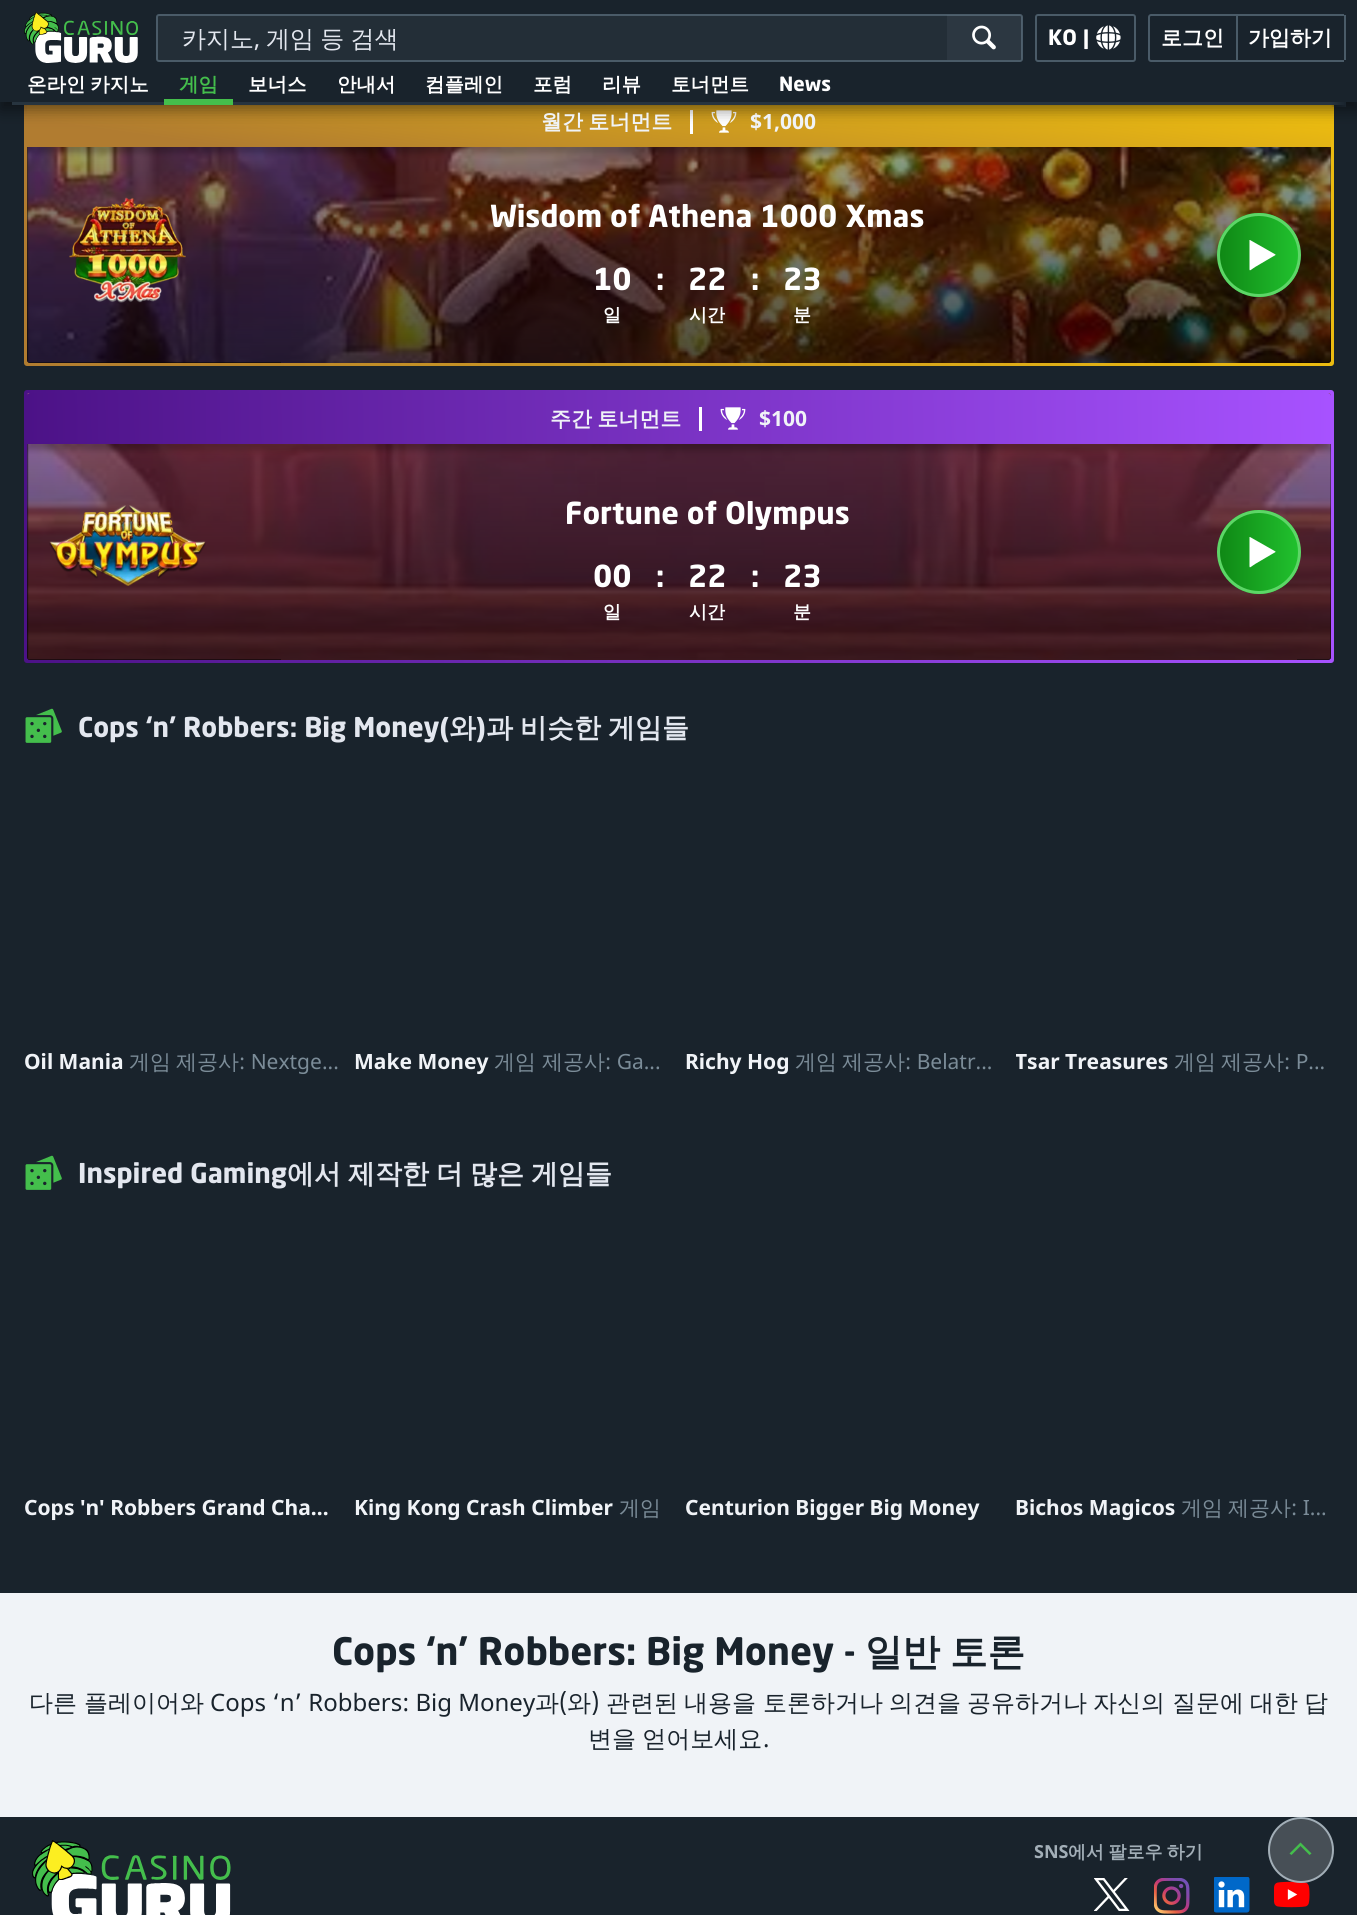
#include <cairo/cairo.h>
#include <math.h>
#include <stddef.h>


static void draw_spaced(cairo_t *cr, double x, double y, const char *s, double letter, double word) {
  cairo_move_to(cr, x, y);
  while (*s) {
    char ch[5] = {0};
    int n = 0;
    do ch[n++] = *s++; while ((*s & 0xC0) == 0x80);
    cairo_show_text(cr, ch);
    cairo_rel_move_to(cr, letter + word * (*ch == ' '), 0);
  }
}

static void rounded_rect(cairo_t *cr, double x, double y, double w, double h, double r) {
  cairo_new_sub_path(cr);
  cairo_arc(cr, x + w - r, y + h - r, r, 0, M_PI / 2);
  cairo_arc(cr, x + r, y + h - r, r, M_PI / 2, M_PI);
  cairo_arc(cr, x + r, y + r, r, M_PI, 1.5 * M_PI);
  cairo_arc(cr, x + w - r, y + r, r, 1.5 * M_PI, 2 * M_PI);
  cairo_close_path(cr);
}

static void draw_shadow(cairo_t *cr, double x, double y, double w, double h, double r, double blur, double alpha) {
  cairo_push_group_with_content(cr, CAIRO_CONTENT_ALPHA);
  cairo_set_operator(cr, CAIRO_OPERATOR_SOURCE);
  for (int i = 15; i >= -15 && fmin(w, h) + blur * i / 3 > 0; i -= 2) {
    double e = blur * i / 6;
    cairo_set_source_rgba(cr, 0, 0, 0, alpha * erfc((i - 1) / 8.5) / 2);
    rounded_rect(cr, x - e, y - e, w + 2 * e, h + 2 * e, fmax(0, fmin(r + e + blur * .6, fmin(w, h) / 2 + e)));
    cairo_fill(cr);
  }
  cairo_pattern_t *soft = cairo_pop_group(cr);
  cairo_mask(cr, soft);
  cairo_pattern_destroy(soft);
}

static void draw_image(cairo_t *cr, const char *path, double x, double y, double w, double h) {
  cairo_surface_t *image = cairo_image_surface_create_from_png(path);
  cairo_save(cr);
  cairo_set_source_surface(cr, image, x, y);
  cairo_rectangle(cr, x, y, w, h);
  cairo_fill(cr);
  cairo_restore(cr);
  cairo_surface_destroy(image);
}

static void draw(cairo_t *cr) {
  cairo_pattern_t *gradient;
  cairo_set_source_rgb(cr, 240 / 255.0, 243 / 255.0, 247 / 255.0);
  cairo_paint(cr);
  cairo_set_source_rgb(cr, 25 / 255.0, 35 / 255.0, 44 / 255.0);
  cairo_rectangle(cr, 0, 102, 1357, 1491);
  cairo_fill(cr);
  gradient = cairo_pattern_create_linear(24, 230, 1334, 229);
  cairo_pattern_add_color_stop_rgba(gradient, 0, 177 / 255.0, 124 / 255.0, 48 / 255.0, 1);
  cairo_pattern_add_color_stop_rgba(gradient, 1, 235 / 255.0, 187 / 255.0, 16 / 255.0, 1);
  cairo_set_source(cr, gradient);
  cairo_pattern_destroy(gradient);
  rounded_rect(cr, 24, 93, 1310, 273, 3);
  cairo_fill(cr);
  gradient = cairo_pattern_create_linear(679, 96, 679, 363);
  cairo_pattern_add_color_stop_rgba(gradient, 0, 0, 0, 0, 0.3);
  cairo_pattern_add_color_stop_rgba(gradient, 1, 0, 0, 0, 0.9);
  cairo_set_source(cr, gradient);
  cairo_pattern_destroy(gradient);
  rounded_rect(cr, 27, 96, 1304, 267, 3);
  cairo_fill(cr);
  draw_image(cr, "images/4.png", 27, 147, 1304, 216);
  gradient = cairo_pattern_create_linear(679, 96, 679, 363);
  cairo_pattern_add_color_stop_rgba(gradient, 0, 0, 0, 0, 0.3);
  cairo_pattern_add_color_stop_rgba(gradient, 1, 0, 0, 0, 0.7);
  cairo_set_source(cr, gradient);
  cairo_pattern_destroy(gradient);
  rounded_rect(cr, 27, 96, 1304, 267, 3);
  cairo_fill(cr);
  cairo_save(cr);
  rounded_rect(cr, 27, 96, 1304, 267, 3);
  cairo_clip(cr);
  cairo_set_source_rgb(cr, 0, 0, 0);
  draw_shadow(cr, 27, 102, 1304, 51, 0, 3, 0.25);
  cairo_restore(cr);
  gradient = cairo_pattern_create_linear(663, 236, 695, 6.7);
  cairo_pattern_add_color_stop_rgba(gradient, 0.12, 177 / 255.0, 124 / 255.0, 48 / 255.0, 1);
  cairo_pattern_add_color_stop_rgba(gradient, 0.88, 235 / 255.0, 187 / 255.0, 16 / 255.0, 1);
  cairo_set_source(cr, gradient);
  cairo_pattern_destroy(gradient);
  cairo_rectangle(cr, 27, 105, 1304, 42);
  cairo_fill(cr);
  cairo_set_source_rgb(cr, 1, 1, 1);
  cairo_rectangle(cr, 690, 110, 3, 24);
  cairo_fill(cr);
  draw_image(cr, "images/5.png", 711, 110, 26, 23);
  cairo_set_source_rgb(cr, 0, 0, 0);
  draw_shadow(cr, 0, 8, 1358, 102, 0, 7.5, 0.45);
  cairo_set_source_rgb(cr, 25 / 255.0, 35 / 255.0, 44 / 255.0);
  cairo_rectangle(cr, 0, 0, 1357, 102);
  cairo_fill(cr);
  draw_image(cr, "images/1.png", 24, 12, 114, 51);
  cairo_set_source_rgb(cr, 35 / 255.0, 46 / 255.0, 55 / 255.0);
  rounded_rect(cr, 157, 15, 865, 46, 2);
  cairo_fill_preserve(cr);
  cairo_set_source_rgb(cr, 74 / 255.0, 91 / 255.0, 104 / 255.0);
  cairo_stroke(cr);
  cairo_set_source_rgba(cr, 123 / 255.0, 140 / 255.0, 152 / 255.0, 0.1);
  cairo_new_path(cr);
  cairo_move_to(cr, 947, 15);
  cairo_line_to(cr, 1019, 15);
  cairo_curve_to(cr, 1020.5, 15, 1022, 16.5, 1022, 18);
  cairo_line_to(cr, 1022, 57);
  cairo_curve_to(cr, 1022, 58.5, 1020.5, 60, 1019, 60);
  cairo_line_to(cr, 947, 60);
  cairo_close_path(cr);
  cairo_fill(cr);
  draw_image(cr, "images/2.png", 972, 25, 24, 25);
  rounded_rect(cr, 1036, 15, 99, 46, 2);
  cairo_set_source_rgb(cr, 74 / 255.0, 91 / 255.0, 104 / 255.0);
  cairo_stroke(cr);
  draw_image(cr, "images/3.png", 1096, 25, 25, 25);
  cairo_new_path(cr);
  cairo_move_to(cr, 1151, 15);
  cairo_line_to(cr, 1237, 15);
  cairo_line_to(cr, 1237, 61);
  cairo_line_to(cr, 1151, 61);
  cairo_curve_to(cr, 1150, 61, 1149, 60, 1149, 59);
  cairo_line_to(cr, 1149, 17);
  cairo_curve_to(cr, 1149, 16, 1150, 15, 1151, 15);
  cairo_close_path(cr);
  cairo_stroke(cr);
  cairo_rectangle(cr, 1238, 14, 106, 2);
  cairo_fill(cr);
  cairo_rectangle(cr, 1344, 15, 2, 45);
  cairo_fill(cr);
  cairo_rectangle(cr, 1238, 60, 106, 2);
  cairo_fill(cr);
  cairo_set_source_rgb(cr, 39 / 255.0, 52 / 255.0, 63 / 255.0);
  cairo_rectangle(cr, 12, 102, 1334, 3);
  cairo_fill(cr);
  cairo_set_source_rgb(cr, 68 / 255.0, 190 / 255.0, 76 / 255.0);
  cairo_rectangle(cr, 164, 99, 69, 6);
  cairo_fill(cr);
  gradient = cairo_pattern_create_linear(1331, 84, 1346, 84);
  cairo_pattern_add_color_stop_rgba(gradient, 0, 25 / 255.0, 35 / 255.0, 44 / 255.0, 0);
  cairo_pattern_add_color_stop_rgba(gradient, 1, 25 / 255.0, 35 / 255.0, 44 / 255.0, 1);
  cairo_set_source(cr, gradient);
  cairo_pattern_destroy(gradient);
  cairo_rectangle(cr, 1331, 102, 15, 5);
  cairo_fill(cr);
  draw_image(cr, "images/6.png", 69, 197, 117, 106);
  cairo_save(cr);
  rounded_rect(cr, 1217, 213, 84, 84, 42);
  cairo_clip(cr);
  gradient = cairo_pattern_create_linear(1298, 255, 1220, 255);
  cairo_pattern_add_color_stop_rgba(gradient, 0, 33 / 255.0, 193 / 255.0, 46 / 255.0, 1);
  cairo_pattern_add_color_stop_rgba(gradient, 1, 15 / 255.0, 136 / 255.0, 21 / 255.0, 1);
  cairo_set_source(cr, gradient);
  cairo_pattern_destroy(gradient);
  cairo_rectangle(cr, 1220, 213, 78, 84);
  cairo_fill(cr);
  cairo_restore(cr);
  cairo_arc(cr, 1259, 255, 40.5, 0, 2 * M_PI);
  cairo_set_source_rgb(cr, 93 / 255.0, 214 / 255.0, 103 / 255.0);
  cairo_set_line_width(cr, 3);
  cairo_stroke(cr);
  cairo_set_source_rgb(cr, 1, 1, 1);
  cairo_new_path(cr);
  cairo_move_to(cr, 1249.5, 240);
  cairo_line_to(cr, 1249.5, 265);
  cairo_curve_to(cr, 1249.5, 273.5, 1248.5, 270.5, 1258.5, 265);
  cairo_line_to(cr, 1275.5, 255);
  cairo_line_to(cr, 1275.5, 254.5);
  cairo_line_to(cr, 1250, 240);
  cairo_close_path(cr);
  cairo_fill(cr);
  gradient = cairo_pattern_create_linear(24, 527, 1334, 527);
  cairo_pattern_add_color_stop_rgba(gradient, 0, 76 / 255.0, 18 / 255.0, 135 / 255.0, 1);
  cairo_pattern_add_color_stop_rgba(gradient, 1, 167 / 255.0, 82 / 255.0, 1, 1);
  cairo_set_source(cr, gradient);
  cairo_pattern_destroy(gradient);
  rounded_rect(cr, 24, 390, 1310, 273, 3);
  cairo_fill(cr);
  gradient = cairo_pattern_create_linear(679, 393, 679, 660);
  cairo_pattern_add_color_stop_rgba(gradient, 0, 0, 0, 0, 0.3);
  cairo_pattern_add_color_stop_rgba(gradient, 1, 0, 0, 0, 0.9);
  cairo_set_source(cr, gradient);
  cairo_pattern_destroy(gradient);
  rounded_rect(cr, 27, 393, 1304, 267, 3);
  cairo_fill(cr);
  draw_image(cr, "images/7.png", 27, 393, 1304, 267);
  gradient = cairo_pattern_create_linear(679, 393, 679, 660);
  cairo_pattern_add_color_stop_rgba(gradient, 0, 0, 0, 0, 0.3);
  cairo_pattern_add_color_stop_rgba(gradient, 1, 0, 0, 0, 0.7);
  cairo_set_source(cr, gradient);
  cairo_pattern_destroy(gradient);
  rounded_rect(cr, 27, 393, 1304, 267, 3);
  cairo_fill(cr);
  cairo_save(cr);
  rounded_rect(cr, 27, 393, 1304, 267, 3);
  cairo_clip(cr);
  cairo_set_source_rgb(cr, 0, 0, 0);
  draw_shadow(cr, 27, 399, 1304, 51, 0, 3, 0.25);
  cairo_restore(cr);
  gradient = cairo_pattern_create_linear(27, 430, 1331, 407);
  cairo_pattern_add_color_stop_rgba(gradient, 0, 76 / 255.0, 18 / 255.0, 135 / 255.0, 1);
  cairo_pattern_add_color_stop_rgba(gradient, 1, 167 / 255.0, 82 / 255.0, 1, 1);
  cairo_set_source(cr, gradient);
  cairo_pattern_destroy(gradient);
  cairo_new_path(cr);
  cairo_move_to(cr, 30, 393);
  cairo_line_to(cr, 1328, 393);
  cairo_curve_to(cr, 1329.5, 393, 1331, 394.5, 1331, 396);
  cairo_line_to(cr, 1331, 444);
  cairo_line_to(cr, 27, 444);
  cairo_line_to(cr, 27, 396);
  cairo_curve_to(cr, 27, 394.5, 28.5, 393, 30, 393);
  cairo_close_path(cr);
  cairo_fill(cr);
  cairo_set_source_rgb(cr, 1, 1, 1);
  cairo_rectangle(cr, 699, 407, 3, 24);
  cairo_fill(cr);
  draw_image(cr, "images/8.png", 720, 407, 26, 23);
  draw_image(cr, "images/9.png", 49, 505, 157, 81);
  cairo_save(cr);
  rounded_rect(cr, 1217, 510, 84, 84, 42);
  cairo_clip(cr);
  gradient = cairo_pattern_create_linear(1298, 552, 1220, 552);
  cairo_pattern_add_color_stop_rgba(gradient, 0, 33 / 255.0, 193 / 255.0, 46 / 255.0, 1);
  cairo_pattern_add_color_stop_rgba(gradient, 1, 15 / 255.0, 136 / 255.0, 21 / 255.0, 1);
  cairo_set_source(cr, gradient);
  cairo_pattern_destroy(gradient);
  cairo_rectangle(cr, 1220, 510, 78, 84);
  cairo_fill(cr);
  cairo_restore(cr);
  cairo_arc(cr, 1259, 552, 40.5, 0, 2 * M_PI);
  cairo_set_source_rgb(cr, 93 / 255.0, 214 / 255.0, 103 / 255.0);
  cairo_stroke(cr);
  cairo_set_source_rgb(cr, 1, 1, 1);
  cairo_new_path(cr);
  cairo_move_to(cr, 1249.5, 537);
  cairo_line_to(cr, 1249.5, 562);
  cairo_curve_to(cr, 1249.5, 570.5, 1248.5, 567.5, 1258.5, 562);
  cairo_line_to(cr, 1275.5, 552);
  cairo_line_to(cr, 1275.5, 551.5);
  cairo_line_to(cr, 1250, 537);
  cairo_close_path(cr);
  cairo_fill(cr);
  draw_image(cr, "images/10.png", 25, 708, 37, 35);
  draw_image(cr, "images/10.png", 25, 1155, 37, 35);
  cairo_set_source_rgb(cr, 25 / 255.0, 35 / 255.0, 44 / 255.0);
  cairo_rectangle(cr, 0, 1817, 1357, 98);
  cairo_fill(cr);
  draw_image(cr, "images/11.png", 32, 1840, 199, 75);
  draw_image(cr, "images/12.png", 1094, 1878, 36, 33);
  draw_image(cr, "images/13.png", 1154, 1878, 36, 36);
  draw_image(cr, "images/14.png", 1214, 1877, 36, 36);
  draw_image(cr, "images/15.png", 1274, 1881, 36, 27);
  cairo_set_source_rgba(cr, 1, 1, 1, 0.2);
  cairo_arc(cr, 1301, 1850, 32, 0, 2 * M_PI);
  cairo_fill_preserve(cr);
  cairo_set_source_rgb(cr, 162 / 255.0, 174 / 255.0, 183 / 255.0);
  cairo_set_line_width(cr, 2);
  cairo_stroke(cr);
  cairo_set_source_rgb(cr, 68 / 255.0, 190 / 255.0, 76 / 255.0);
  cairo_new_path(cr);
  cairo_move_to(cr, 1311.5, 1853.5);
  cairo_line_to(cr, 1309.5, 1855);
  cairo_line_to(cr, 1300.5, 1846);
  cairo_line_to(cr, 1291.5, 1855);
  cairo_line_to(cr, 1289.5, 1853.5);
  cairo_line_to(cr, 1300.5, 1842.5);
  cairo_close_path(cr);
  cairo_fill(cr);
  cairo_select_font_face(cr, "WenQuanYi Zen Hei Medium", CAIRO_FONT_SLANT_NORMAL, CAIRO_FONT_WEIGHT_NORMAL);
  cairo_set_font_size(cr, 24);
  cairo_set_source_rgb(cr, 227 / 255.0, 231 / 255.0, 239 / 255.0);
  cairo_move_to(cr, 182, 47);
  cairo_show_text(cr, "카지노");
  cairo_select_font_face(cr, "Noto Sans", CAIRO_FONT_SLANT_NORMAL, CAIRO_FONT_WEIGHT_NORMAL);
  cairo_move_to(cr, 254, 47);
  cairo_show_text(cr, ",");
  cairo_select_font_face(cr, "WenQuanYi Zen Hei Medium", CAIRO_FONT_SLANT_NORMAL, CAIRO_FONT_WEIGHT_NORMAL);
  draw_spaced(cr, 266, 47, "게임 등 검색", 0, -1);
  cairo_select_font_face(cr, "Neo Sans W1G", CAIRO_FONT_SLANT_NORMAL, CAIRO_FONT_WEIGHT_BOLD);
  cairo_set_font_size(cr, 21);
  cairo_set_source_rgb(cr, 1, 1, 1);
  cairo_move_to(cr, 1048, 45);
  cairo_show_text(cr, "KO");
  cairo_move_to(cr, 1083, 45);
  cairo_show_text(cr, "|");
  cairo_select_font_face(cr, "WenQuanYi Zen Hei", CAIRO_FONT_SLANT_NORMAL, CAIRO_FONT_WEIGHT_BOLD);
  cairo_move_to(cr, 1161, 45);
  cairo_show_text(cr, "로그인");
  cairo_move_to(cr, 1248, 45);
  cairo_show_text(cr, "가입하기");
  cairo_set_font_size(cr, 19.5);
  draw_spaced(cr, 27, 91, "온라인 카지노", 0, -1);
  cairo_set_source_rgb(cr, 68 / 255.0, 190 / 255.0, 76 / 255.0);
  cairo_move_to(cr, 179, 91);
  cairo_show_text(cr, "게임");
  cairo_set_source_rgb(cr, 1, 1, 1);
  cairo_move_to(cr, 248, 91);
  cairo_show_text(cr, "보너스");
  cairo_move_to(cr, 337, 91);
  cairo_show_text(cr, "안내서");
  cairo_move_to(cr, 425, 91);
  cairo_show_text(cr, "컴플레인");
  cairo_move_to(cr, 533, 91);
  cairo_show_text(cr, "포럼");
  cairo_move_to(cr, 602, 91);
  cairo_show_text(cr, "리뷰");
  cairo_move_to(cr, 671, 91);
  cairo_show_text(cr, "토너먼트");
  cairo_select_font_face(cr, "Neo Sans W1G", CAIRO_FONT_SLANT_NORMAL, CAIRO_FONT_WEIGHT_BOLD);
  cairo_move_to(cr, 779, 91);
  cairo_show_text(cr, "News");
  cairo_select_font_face(cr, "WenQuanYi Zen Hei", CAIRO_FONT_SLANT_NORMAL, CAIRO_FONT_WEIGHT_BOLD);
  cairo_set_font_size(cr, 21);
  cairo_set_source_rgb(cr, 240 / 255.0, 243 / 255.0, 247 / 255.0);
  draw_spaced(cr, 541, 129, "월간 토너먼트", 0, -1);
  cairo_select_font_face(cr, "Noto Sans", CAIRO_FONT_SLANT_NORMAL, CAIRO_FONT_WEIGHT_BOLD);
  cairo_move_to(cr, 750, 129);
  cairo_show_text(cr, "$1,000");
  cairo_select_font_face(cr, "Neo Sans W1G", CAIRO_FONT_SLANT_NORMAL, CAIRO_FONT_WEIGHT_BOLD);
  cairo_set_font_size(cr, 30);
  cairo_set_source_rgb(cr, 1, 1, 1);
  cairo_move_to(cr, 490, 227);
  cairo_show_text(cr, "Wisdom of Athena 1000 Xmas");
  cairo_move_to(cr, 593, 290);
  cairo_show_text(cr, "10");
  cairo_select_font_face(cr, "WenQuanYi Zen Hei", CAIRO_FONT_SLANT_NORMAL, CAIRO_FONT_WEIGHT_BOLD);
  cairo_set_font_size(cr, 18);
  cairo_move_to(cr, 603, 321);
  cairo_show_text(cr, "일");
  cairo_select_font_face(cr, "Neo Sans W1G", CAIRO_FONT_SLANT_NORMAL, CAIRO_FONT_WEIGHT_BOLD);
  cairo_set_font_size(cr, 30);
  cairo_move_to(cr, 656, 290);
  cairo_show_text(cr, ":");
  cairo_move_to(cr, 688, 290);
  cairo_show_text(cr, "22");
  cairo_select_font_face(cr, "WenQuanYi Zen Hei", CAIRO_FONT_SLANT_NORMAL, CAIRO_FONT_WEIGHT_BOLD);
  cairo_set_font_size(cr, 18);
  cairo_move_to(cr, 689, 321);
  cairo_show_text(cr, "시간");
  cairo_select_font_face(cr, "Neo Sans W1G", CAIRO_FONT_SLANT_NORMAL, CAIRO_FONT_WEIGHT_BOLD);
  cairo_set_font_size(cr, 30);
  cairo_move_to(cr, 751, 290);
  cairo_show_text(cr, ":");
  cairo_move_to(cr, 783, 290);
  cairo_show_text(cr, "23");
  cairo_select_font_face(cr, "WenQuanYi Zen Hei", CAIRO_FONT_SLANT_NORMAL, CAIRO_FONT_WEIGHT_BOLD);
  cairo_set_font_size(cr, 18);
  cairo_move_to(cr, 793, 321);
  cairo_show_text(cr, "분");
  cairo_set_font_size(cr, 21);
  cairo_set_source_rgb(cr, 240 / 255.0, 243 / 255.0, 247 / 255.0);
  draw_spaced(cr, 550, 426, "주간 토너먼트", 0, -1);
  cairo_select_font_face(cr, "Noto Sans", CAIRO_FONT_SLANT_NORMAL, CAIRO_FONT_WEIGHT_BOLD);
  cairo_move_to(cr, 759, 426);
  cairo_show_text(cr, "$100");
  cairo_select_font_face(cr, "Neo Sans W1G", CAIRO_FONT_SLANT_NORMAL, CAIRO_FONT_WEIGHT_BOLD);
  cairo_set_font_size(cr, 30);
  cairo_set_source_rgb(cr, 1, 1, 1);
  cairo_move_to(cr, 565, 524);
  cairo_show_text(cr, "Fortune of Olympus");
  cairo_move_to(cr, 593, 587);
  cairo_show_text(cr, "00");
  cairo_select_font_face(cr, "WenQuanYi Zen Hei", CAIRO_FONT_SLANT_NORMAL, CAIRO_FONT_WEIGHT_BOLD);
  cairo_set_font_size(cr, 18);
  cairo_move_to(cr, 603, 618);
  cairo_show_text(cr, "일");
  cairo_select_font_face(cr, "Neo Sans W1G", CAIRO_FONT_SLANT_NORMAL, CAIRO_FONT_WEIGHT_BOLD);
  cairo_set_font_size(cr, 30);
  cairo_move_to(cr, 656, 587);
  cairo_show_text(cr, ":");
  cairo_move_to(cr, 688, 587);
  cairo_show_text(cr, "22");
  cairo_select_font_face(cr, "WenQuanYi Zen Hei", CAIRO_FONT_SLANT_NORMAL, CAIRO_FONT_WEIGHT_BOLD);
  cairo_set_font_size(cr, 18);
  cairo_move_to(cr, 689, 618);
  cairo_show_text(cr, "시간");
  cairo_select_font_face(cr, "Neo Sans W1G", CAIRO_FONT_SLANT_NORMAL, CAIRO_FONT_WEIGHT_BOLD);
  cairo_set_font_size(cr, 30);
  cairo_move_to(cr, 751, 587);
  cairo_show_text(cr, ":");
  cairo_move_to(cr, 783, 587);
  cairo_show_text(cr, "23");
  cairo_select_font_face(cr, "WenQuanYi Zen Hei", CAIRO_FONT_SLANT_NORMAL, CAIRO_FONT_WEIGHT_BOLD);
  cairo_set_font_size(cr, 18);
  cairo_move_to(cr, 793, 618);
  cairo_show_text(cr, "분");
  cairo_select_font_face(cr, "Neo Sans W1G", CAIRO_FONT_SLANT_NORMAL, CAIRO_FONT_WEIGHT_BOLD);
  cairo_set_font_size(cr, 27);
  cairo_set_source_rgb(cr, 227 / 255.0, 231 / 255.0, 239 / 255.0);
  cairo_move_to(cr, 78, 737);
  cairo_show_text(cr, "Cops ‘n’ Robbers: Big Money(");
  cairo_select_font_face(cr, "WenQuanYi Zen Hei", CAIRO_FONT_SLANT_NORMAL, CAIRO_FONT_WEIGHT_BOLD);
  cairo_move_to(cr, 449, 737);
  cairo_show_text(cr, "와");
  cairo_select_font_face(cr, "Neo Sans W1G", CAIRO_FONT_SLANT_NORMAL, CAIRO_FONT_WEIGHT_BOLD);
  cairo_move_to(cr, 476, 737);
  cairo_show_text(cr, ")");
  cairo_select_font_face(cr, "WenQuanYi Zen Hei", CAIRO_FONT_SLANT_NORMAL, CAIRO_FONT_WEIGHT_BOLD);
  cairo_move_to(cr, 486, 737);
  cairo_show_text(cr, "과");
  cairo_move_to(cr, 520, 737);
  cairo_show_text(cr, "비슷한");
  cairo_move_to(cr, 608, 737);
  cairo_show_text(cr, "게임들");
  cairo_select_font_face(cr, "Noto Sans", CAIRO_FONT_SLANT_NORMAL, CAIRO_FONT_WEIGHT_BOLD);
  cairo_set_font_size(cr, 21);
  cairo_set_source_rgb(cr, 240 / 255.0, 243 / 255.0, 247 / 255.0);
  cairo_move_to(cr, 24, 1069);
  cairo_show_text(cr, "Oil Mania");
  cairo_select_font_face(cr, "WenQuanYi Zen Hei Medium", CAIRO_FONT_SLANT_NORMAL, CAIRO_FONT_WEIGHT_NORMAL);
  cairo_set_source_rgb(cr, 123 / 255.0, 140 / 255.0, 152 / 255.0);
  cairo_move_to(cr, 129, 1069);
  cairo_show_text(cr, "게임");
  cairo_move_to(cr, 176, 1069);
  cairo_show_text(cr, "제공사");
  cairo_select_font_face(cr, "Noto Sans", CAIRO_FONT_SLANT_NORMAL, CAIRO_FONT_WEIGHT_NORMAL);
  cairo_move_to(cr, 239, 1069);
  cairo_show_text(cr, ": Nextge...");
  cairo_select_font_face(cr, "Noto Sans", CAIRO_FONT_SLANT_NORMAL, CAIRO_FONT_WEIGHT_BOLD);
  cairo_set_source_rgb(cr, 240 / 255.0, 243 / 255.0, 247 / 255.0);
  cairo_move_to(cr, 354, 1069);
  cairo_show_text(cr, "Make Money");
  cairo_select_font_face(cr, "WenQuanYi Zen Hei Medium", CAIRO_FONT_SLANT_NORMAL, CAIRO_FONT_WEIGHT_NORMAL);
  cairo_set_source_rgb(cr, 123 / 255.0, 140 / 255.0, 152 / 255.0);
  cairo_move_to(cr, 494, 1069);
  cairo_show_text(cr, "게임");
  cairo_move_to(cr, 542, 1069);
  cairo_show_text(cr, "제공사");
  cairo_select_font_face(cr, "Noto Sans", CAIRO_FONT_SLANT_NORMAL, CAIRO_FONT_WEIGHT_NORMAL);
  cairo_move_to(cr, 605, 1069);
  cairo_show_text(cr, ": Ga...");
  cairo_select_font_face(cr, "Noto Sans", CAIRO_FONT_SLANT_NORMAL, CAIRO_FONT_WEIGHT_BOLD);
  cairo_set_source_rgb(cr, 240 / 255.0, 243 / 255.0, 247 / 255.0);
  cairo_move_to(cr, 685, 1069);
  cairo_show_text(cr, "Richy Hog");
  cairo_select_font_face(cr, "WenQuanYi Zen Hei Medium", CAIRO_FONT_SLANT_NORMAL, CAIRO_FONT_WEIGHT_NORMAL);
  cairo_set_source_rgb(cr, 123 / 255.0, 140 / 255.0, 152 / 255.0);
  cairo_move_to(cr, 795, 1069);
  cairo_show_text(cr, "게임");
  cairo_move_to(cr, 842, 1069);
  cairo_show_text(cr, "제공사");
  cairo_select_font_face(cr, "Noto Sans", CAIRO_FONT_SLANT_NORMAL, CAIRO_FONT_WEIGHT_NORMAL);
  cairo_move_to(cr, 905, 1069);
  cairo_show_text(cr, ": Belatr...");
  cairo_save(cr);
  cairo_rectangle(cr, 1016, 1050, 318, 24);
  cairo_clip(cr);
  cairo_select_font_face(cr, "Noto Sans", CAIRO_FONT_SLANT_NORMAL, CAIRO_FONT_WEIGHT_BOLD);
  cairo_set_source_rgb(cr, 240 / 255.0, 243 / 255.0, 247 / 255.0);
  cairo_move_to(cr, 1015, 1069);
  cairo_show_text(cr, "Tsar Treasures");
  cairo_restore(cr);
  cairo_select_font_face(cr, "WenQuanYi Zen Hei Medium", CAIRO_FONT_SLANT_NORMAL, CAIRO_FONT_WEIGHT_NORMAL);
  cairo_move_to(cr, 1174, 1069);
  cairo_show_text(cr, "게임");
  cairo_move_to(cr, 1221, 1069);
  cairo_show_text(cr, "제공사");
  cairo_select_font_face(cr, "Noto Sans", CAIRO_FONT_SLANT_NORMAL, CAIRO_FONT_WEIGHT_NORMAL);
  cairo_move_to(cr, 1284, 1069);
  cairo_show_text(cr, ": P...");
  cairo_select_font_face(cr, "Neo Sans W1G", CAIRO_FONT_SLANT_NORMAL, CAIRO_FONT_WEIGHT_BOLD);
  cairo_set_font_size(cr, 27);
  cairo_set_source_rgb(cr, 227 / 255.0, 231 / 255.0, 239 / 255.0);
  cairo_move_to(cr, 78, 1183);
  cairo_show_text(cr, "Inspired Gaming");
  cairo_select_font_face(cr, "WenQuanYi Zen Hei", CAIRO_FONT_SLANT_NORMAL, CAIRO_FONT_WEIGHT_BOLD);
  cairo_move_to(cr, 287, 1183);
  cairo_show_text(cr, "에서");
  cairo_move_to(cr, 348, 1183);
  cairo_show_text(cr, "제작한");
  cairo_move_to(cr, 436, 1183);
  cairo_show_text(cr, "더");
  cairo_move_to(cr, 470, 1183);
  cairo_show_text(cr, "많은");
  cairo_move_to(cr, 531, 1183);
  cairo_show_text(cr, "게임들");
  cairo_select_font_face(cr, "Noto Sans", CAIRO_FONT_SLANT_NORMAL, CAIRO_FONT_WEIGHT_BOLD);
  cairo_set_font_size(cr, 21);
  cairo_set_source_rgb(cr, 240 / 255.0, 243 / 255.0, 247 / 255.0);
  cairo_move_to(cr, 24, 1515);
  cairo_show_text(cr, "Cops 'n' Robbers Grand Cha…");
  cairo_move_to(cr, 354, 1515);
  cairo_show_text(cr, "King Kong Crash Climber");
  cairo_select_font_face(cr, "WenQuanYi Zen Hei Medium", CAIRO_FONT_SLANT_NORMAL, CAIRO_FONT_WEIGHT_NORMAL);
  cairo_set_source_rgb(cr, 123 / 255.0, 140 / 255.0, 152 / 255.0);
  cairo_move_to(cr, 619, 1515);
  cairo_show_text(cr, "게임");
  cairo_select_font_face(cr, "Noto Sans", CAIRO_FONT_SLANT_NORMAL, CAIRO_FONT_WEIGHT_BOLD);
  cairo_set_source_rgb(cr, 240 / 255.0, 243 / 255.0, 247 / 255.0);
  cairo_move_to(cr, 685, 1515);
  cairo_show_text(cr, "Centurion Bigger Big Money");
  cairo_move_to(cr, 1015, 1515);
  cairo_show_text(cr, "Bichos Magicos");
  cairo_select_font_face(cr, "WenQuanYi Zen Hei Medium", CAIRO_FONT_SLANT_NORMAL, CAIRO_FONT_WEIGHT_NORMAL);
  cairo_set_source_rgb(cr, 123 / 255.0, 140 / 255.0, 152 / 255.0);
  cairo_move_to(cr, 1181, 1515);
  cairo_show_text(cr, "게임");
  cairo_move_to(cr, 1228, 1515);
  cairo_show_text(cr, "제공사");
  cairo_select_font_face(cr, "Noto Sans", CAIRO_FONT_SLANT_NORMAL, CAIRO_FONT_WEIGHT_NORMAL);
  cairo_move_to(cr, 1291, 1515);
  cairo_show_text(cr, ": I...");
  cairo_select_font_face(cr, "Neo Sans W1G", CAIRO_FONT_SLANT_NORMAL, CAIRO_FONT_WEIGHT_BOLD);
  cairo_set_font_size(cr, 37.5);
  cairo_set_source_rgb(cr, 25 / 255.0, 35 / 255.0, 44 / 255.0);
  cairo_move_to(cr, 332, 1665);
  cairo_show_text(cr, "Cops ‘n’ Robbers: Big Money -");
  cairo_select_font_face(cr, "WenQuanYi Zen Hei", CAIRO_FONT_SLANT_NORMAL, CAIRO_FONT_WEIGHT_BOLD);
  cairo_move_to(cr, 865, 1665);
  cairo_show_text(cr, "일반");
  cairo_move_to(cr, 950, 1665);
  cairo_show_text(cr, "토론");
  cairo_select_font_face(cr, "WenQuanYi Zen Hei Medium", CAIRO_FONT_SLANT_NORMAL, CAIRO_FONT_WEIGHT_NORMAL);
  cairo_set_font_size(cr, 24);
  cairo_move_to(cr, 29, 1711);
  cairo_show_text(cr, "다른");
  cairo_move_to(cr, 84, 1711);
  cairo_show_text(cr, "플레이어와");
  cairo_select_font_face(cr, "Noto Sans", CAIRO_FONT_SLANT_NORMAL, CAIRO_FONT_WEIGHT_NORMAL);
  cairo_move_to(cr, 210, 1711);
  cairo_show_text(cr, "Cops ‘n’ Robbers: Big Money");
  cairo_select_font_face(cr, "WenQuanYi Zen Hei Medium", CAIRO_FONT_SLANT_NORMAL, CAIRO_FONT_WEIGHT_NORMAL);
  cairo_move_to(cr, 535, 1711);
  cairo_show_text(cr, "과");
  cairo_select_font_face(cr, "Noto Sans", CAIRO_FONT_SLANT_NORMAL, CAIRO_FONT_WEIGHT_NORMAL);
  cairo_move_to(cr, 559, 1711);
  cairo_show_text(cr, "(");
  cairo_select_font_face(cr, "WenQuanYi Zen Hei Medium", CAIRO_FONT_SLANT_NORMAL, CAIRO_FONT_WEIGHT_NORMAL);
  cairo_move_to(cr, 567, 1711);
  cairo_show_text(cr, "와");
  cairo_select_font_face(cr, "Noto Sans", CAIRO_FONT_SLANT_NORMAL, CAIRO_FONT_WEIGHT_NORMAL);
  cairo_move_to(cr, 591, 1711);
  cairo_show_text(cr, ")");
  cairo_select_font_face(cr, "WenQuanYi Zen Hei Medium", CAIRO_FONT_SLANT_NORMAL, CAIRO_FONT_WEIGHT_NORMAL);
  cairo_move_to(cr, 606, 1711);
  cairo_show_text(cr, "관련된");
  cairo_move_to(cr, 684, 1711);
  cairo_show_text(cr, "내용을");
  cairo_move_to(cr, 763, 1711);
  cairo_show_text(cr, "토론하거나");
  cairo_move_to(cr, 889, 1711);
  cairo_show_text(cr, "의견을");
  cairo_move_to(cr, 967, 1711);
  cairo_show_text(cr, "공유하거나");
  cairo_move_to(cr, 1093, 1711);
  cairo_show_text(cr, "자신의");
  cairo_move_to(cr, 1172, 1711);
  cairo_show_text(cr, "질문에");
  cairo_move_to(cr, 1250, 1711);
  cairo_show_text(cr, "대한");
  cairo_move_to(cr, 1304, 1711);
  cairo_show_text(cr, "답");
  draw_spaced(cr, 588, 1747, "변을 얻어보세요", 0, -1);
  cairo_select_font_face(cr, "Noto Sans", CAIRO_FONT_SLANT_NORMAL, CAIRO_FONT_WEIGHT_NORMAL);
  cairo_move_to(cr, 763, 1747);
  cairo_show_text(cr, ".");
  cairo_select_font_face(cr, "Noto Sans", CAIRO_FONT_SLANT_NORMAL, CAIRO_FONT_WEIGHT_BOLD);
  cairo_set_font_size(cr, 18);
  cairo_set_source_rgb(cr, 162 / 255.0, 174 / 255.0, 183 / 255.0);
  cairo_move_to(cr, 1034, 1858);
  cairo_show_text(cr, "SNS");
  cairo_select_font_face(cr, "WenQuanYi Zen Hei", CAIRO_FONT_SLANT_NORMAL, CAIRO_FONT_WEIGHT_BOLD);
  draw_spaced(cr, 1068, 1858, "에서 팔로우 하기", 0, -1);
}

int main(void) {
  cairo_surface_t *surface = cairo_image_surface_create(CAIRO_FORMAT_RGB24, 1357, 1915);
  cairo_t *cr = cairo_create(surface);
  cairo_font_options_t *options = cairo_font_options_create();
  cairo_font_options_set_hint_metrics(options, CAIRO_HINT_METRICS_OFF);
  cairo_font_options_set_hint_style(options, CAIRO_HINT_STYLE_NONE);
  cairo_set_font_options(cr, options);
  cairo_set_miter_limit(cr, 4);
  draw(cr);
  cairo_surface_write_to_png(surface, "out.png");
  cairo_font_options_destroy(options);
  cairo_destroy(cr);
  cairo_surface_destroy(surface);
  return 0;
}
